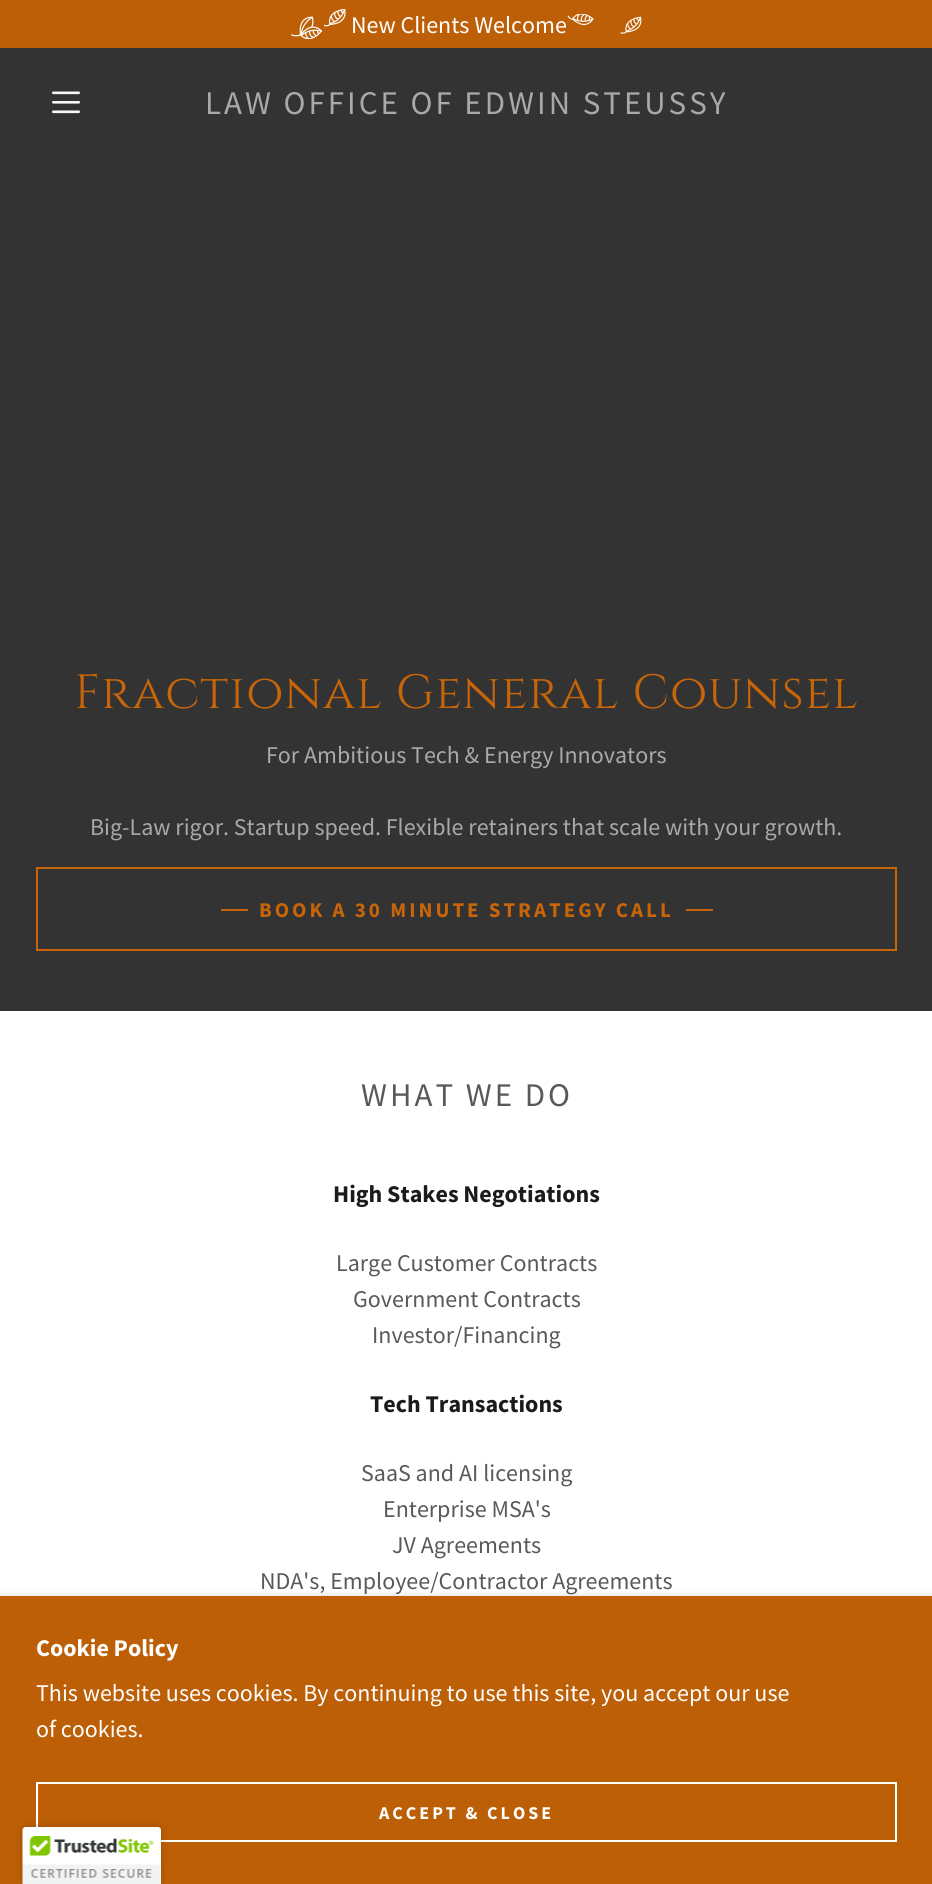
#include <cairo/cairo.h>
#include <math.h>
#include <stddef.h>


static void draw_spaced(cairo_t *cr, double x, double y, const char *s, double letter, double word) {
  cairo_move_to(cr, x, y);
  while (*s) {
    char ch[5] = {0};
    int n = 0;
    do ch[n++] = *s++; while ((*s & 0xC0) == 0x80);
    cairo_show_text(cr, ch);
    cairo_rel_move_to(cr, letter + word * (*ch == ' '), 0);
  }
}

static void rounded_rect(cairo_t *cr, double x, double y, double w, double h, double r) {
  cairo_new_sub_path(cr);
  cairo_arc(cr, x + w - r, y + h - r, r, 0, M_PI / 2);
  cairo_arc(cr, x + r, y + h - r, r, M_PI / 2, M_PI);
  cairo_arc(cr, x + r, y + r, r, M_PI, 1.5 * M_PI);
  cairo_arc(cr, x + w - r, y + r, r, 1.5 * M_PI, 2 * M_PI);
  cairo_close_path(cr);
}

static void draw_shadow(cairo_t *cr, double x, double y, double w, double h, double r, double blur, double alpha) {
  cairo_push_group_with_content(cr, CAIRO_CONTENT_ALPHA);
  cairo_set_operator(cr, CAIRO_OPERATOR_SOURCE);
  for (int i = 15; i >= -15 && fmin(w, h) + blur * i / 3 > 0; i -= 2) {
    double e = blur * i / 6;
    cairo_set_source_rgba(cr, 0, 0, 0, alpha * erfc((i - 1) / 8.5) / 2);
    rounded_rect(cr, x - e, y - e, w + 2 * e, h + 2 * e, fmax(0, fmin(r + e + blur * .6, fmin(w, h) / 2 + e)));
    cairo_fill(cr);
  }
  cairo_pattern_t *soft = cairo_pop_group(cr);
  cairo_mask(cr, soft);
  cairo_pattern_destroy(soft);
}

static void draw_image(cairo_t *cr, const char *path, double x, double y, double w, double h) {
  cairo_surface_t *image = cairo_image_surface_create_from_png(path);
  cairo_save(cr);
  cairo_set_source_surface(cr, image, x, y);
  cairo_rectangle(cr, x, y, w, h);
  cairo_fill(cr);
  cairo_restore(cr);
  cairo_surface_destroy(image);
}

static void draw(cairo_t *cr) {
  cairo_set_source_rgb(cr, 51 / 255.0, 51 / 255.0, 51 / 255.0);
  cairo_paint(cr);
  cairo_set_source_rgb(cr, 189 / 255.0, 95 / 255.0, 6 / 255.0);
  cairo_rectangle(cr, 0, 0, 932, 48);
  cairo_fill(cr);
  draw_image(cr, "images/1.png", 291, 9, 55, 30);
  draw_image(cr, "images/2.png", 567, 14, 75, 20);
  draw_image(cr, "images/3.png", 52, 91, 28, 23);
  cairo_rectangle(cr, 37, 868, 859, 82);
  cairo_set_source_rgb(cr, 199 / 255.0, 101 / 255.0, 8 / 255.0);
  cairo_stroke(cr);
  cairo_rectangle(cr, 221, 909, 27, 2);
  cairo_fill(cr);
  cairo_rectangle(cr, 686, 909, 27, 2);
  cairo_fill(cr);
  cairo_set_source_rgb(cr, 1, 1, 1);
  cairo_rectangle(cr, 0, 1011, 932, 585);
  cairo_fill(cr);
  cairo_set_source_rgb(cr, 0, 0, 0);
  draw_shadow(cr, 0, 1599, 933, 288, 0, 4.5, 0.3);
  cairo_set_source_rgb(cr, 189 / 255.0, 95 / 255.0, 6 / 255.0);
  cairo_rectangle(cr, 0, 1596, 932, 288);
  cairo_fill(cr);
  cairo_rectangle(cr, 37, 1783, 859, 58);
  cairo_set_source_rgb(cr, 1, 1, 1);
  cairo_stroke(cr);
  cairo_set_source_rgb(cr, 0, 0, 0);
  draw_shadow(cr, 23, 1827, 138, 57, 3, 4, 0.2);
  cairo_set_source_rgb(cr, 1, 1, 1);
  cairo_new_path(cr);
  cairo_move_to(cr, 26, 1827);
  cairo_line_to(cr, 158, 1827);
  cairo_curve_to(cr, 159.5, 1827, 161, 1828.5, 161, 1830);
  cairo_line_to(cr, 161, 1884);
  cairo_line_to(cr, 23, 1884);
  cairo_line_to(cr, 23, 1830);
  cairo_curve_to(cr, 23, 1828.5, 24.5, 1827, 26, 1827);
  cairo_close_path(cr);
  cairo_fill(cr);
  draw_image(cr, "images/4.png", 22, 1827, 139, 57);
  cairo_select_font_face(cr, "Source Sans Pro", CAIRO_FONT_SLANT_NORMAL, CAIRO_FONT_WEIGHT_NORMAL);
  cairo_set_font_size(cr, 24);
  cairo_move_to(cr, 351, 33);
  cairo_show_text(cr, "New Clients Welcome");
  cairo_set_font_size(cr, 33);
  cairo_set_source_rgb(cr, 169 / 255.0, 169 / 255.0, 169 / 255.0);
  draw_spaced(cr, 205, 114, "LAW OFFICE OF EDWIN STEUSSY", 3, 0);
  cairo_select_font_face(cr, "Cinzel", CAIRO_FONT_SLANT_NORMAL, CAIRO_FONT_WEIGHT_NORMAL);
  cairo_set_font_size(cr, 48);
  cairo_set_source_rgb(cr, 199 / 255.0, 101 / 255.0, 8 / 255.0);
  draw_spaced(cr, 74, 708, "Fractional General Counsel", 1.1, 0);
  cairo_select_font_face(cr, "Source Sans Pro", CAIRO_FONT_SLANT_NORMAL, CAIRO_FONT_WEIGHT_NORMAL);
  cairo_set_font_size(cr, 24);
  cairo_set_source_rgb(cr, 169 / 255.0, 169 / 255.0, 169 / 255.0);
  cairo_move_to(cr, 266, 763);
  cairo_show_text(cr, "For Ambitious Tech & Energy Innovators");
  cairo_move_to(cr, 90, 835);
  cairo_show_text(cr, "Big-Law rigor. Startup speed. Flexible retainers that scale with your growth.");
  cairo_select_font_face(cr, "Source Sans Pro", CAIRO_FONT_SLANT_NORMAL, CAIRO_FONT_WEIGHT_BOLD);
  cairo_set_font_size(cr, 21);
  cairo_set_source_rgb(cr, 199 / 255.0, 101 / 255.0, 8 / 255.0);
  draw_spaced(cr, 259, 917, "BOOK A 30 MINUTE STRATEGY CALL", 3, 0);
  cairo_select_font_face(cr, "Source Sans Pro", CAIRO_FONT_SLANT_NORMAL, CAIRO_FONT_WEIGHT_NORMAL);
  cairo_set_font_size(cr, 33);
  cairo_set_source_rgb(cr, 89 / 255.0, 89 / 255.0, 89 / 255.0);
  draw_spaced(cr, 361, 1106, "WHAT WE DO", 3, 0);
  cairo_select_font_face(cr, "Source Sans Pro", CAIRO_FONT_SLANT_NORMAL, CAIRO_FONT_WEIGHT_BOLD);
  cairo_set_font_size(cr, 24);
  cairo_set_source_rgb(cr, 27 / 255.0, 27 / 255.0, 27 / 255.0);
  cairo_move_to(cr, 333, 1202);
  cairo_show_text(cr, "High Stakes Negotiations");
  cairo_select_font_face(cr, "Source Sans Pro", CAIRO_FONT_SLANT_NORMAL, CAIRO_FONT_WEIGHT_NORMAL);
  cairo_set_source_rgb(cr, 89 / 255.0, 89 / 255.0, 89 / 255.0);
  cairo_move_to(cr, 336, 1271);
  cairo_show_text(cr, "Large Customer Contracts");
  cairo_move_to(cr, 353, 1307);
  cairo_show_text(cr, "Government Contracts");
  cairo_move_to(cr, 372, 1343);
  cairo_show_text(cr, "Investor/Financing");
  cairo_select_font_face(cr, "Source Sans Pro", CAIRO_FONT_SLANT_NORMAL, CAIRO_FONT_WEIGHT_BOLD);
  cairo_set_source_rgb(cr, 27 / 255.0, 27 / 255.0, 27 / 255.0);
  cairo_move_to(cr, 370, 1412);
  cairo_show_text(cr, "Tech Transactions");
  cairo_select_font_face(cr, "Source Sans Pro", CAIRO_FONT_SLANT_NORMAL, CAIRO_FONT_WEIGHT_NORMAL);
  cairo_set_source_rgb(cr, 89 / 255.0, 89 / 255.0, 89 / 255.0);
  cairo_move_to(cr, 361, 1481);
  cairo_show_text(cr, "SaaS and AI licensing");
  cairo_move_to(cr, 383, 1517);
  cairo_show_text(cr, "Enterprise MSA's");
  cairo_move_to(cr, 392, 1553);
  cairo_show_text(cr, "JV Agreements");
  cairo_move_to(cr, 260, 1589);
  cairo_show_text(cr, "NDA's, Employee/Contractor Agreements");
  cairo_select_font_face(cr, "Source Sans Pro", CAIRO_FONT_SLANT_NORMAL, CAIRO_FONT_WEIGHT_BOLD);
  cairo_set_source_rgb(cr, 1, 1, 1);
  cairo_move_to(cr, 36, 1656);
  cairo_show_text(cr, "Cookie Policy");
  cairo_select_font_face(cr, "Source Sans Pro", CAIRO_FONT_SLANT_NORMAL, CAIRO_FONT_WEIGHT_NORMAL);
  cairo_move_to(cr, 36, 1701);
  cairo_show_text(cr, "This website uses cookies. By continuing to use this site, you accept our use");
  cairo_move_to(cr, 36, 1737);
  cairo_show_text(cr, "of cookies.");
  cairo_select_font_face(cr, "Source Sans Pro", CAIRO_FONT_SLANT_NORMAL, CAIRO_FONT_WEIGHT_BOLD);
  cairo_set_font_size(cr, 18);
  draw_spaced(cr, 379, 1819, "ACCEPT & CLOSE", 3, 0);
}

int main(void) {
  cairo_surface_t *surface = cairo_image_surface_create(CAIRO_FORMAT_RGB24, 932, 1884);
  cairo_t *cr = cairo_create(surface);
  cairo_font_options_t *options = cairo_font_options_create();
  cairo_font_options_set_hint_metrics(options, CAIRO_HINT_METRICS_OFF);
  cairo_font_options_set_hint_style(options, CAIRO_HINT_STYLE_NONE);
  cairo_set_font_options(cr, options);
  cairo_set_miter_limit(cr, 4);
  draw(cr);
  cairo_surface_write_to_png(surface, "out.png");
  cairo_font_options_destroy(options);
  cairo_destroy(cr);
  cairo_surface_destroy(surface);
  return 0;
}
